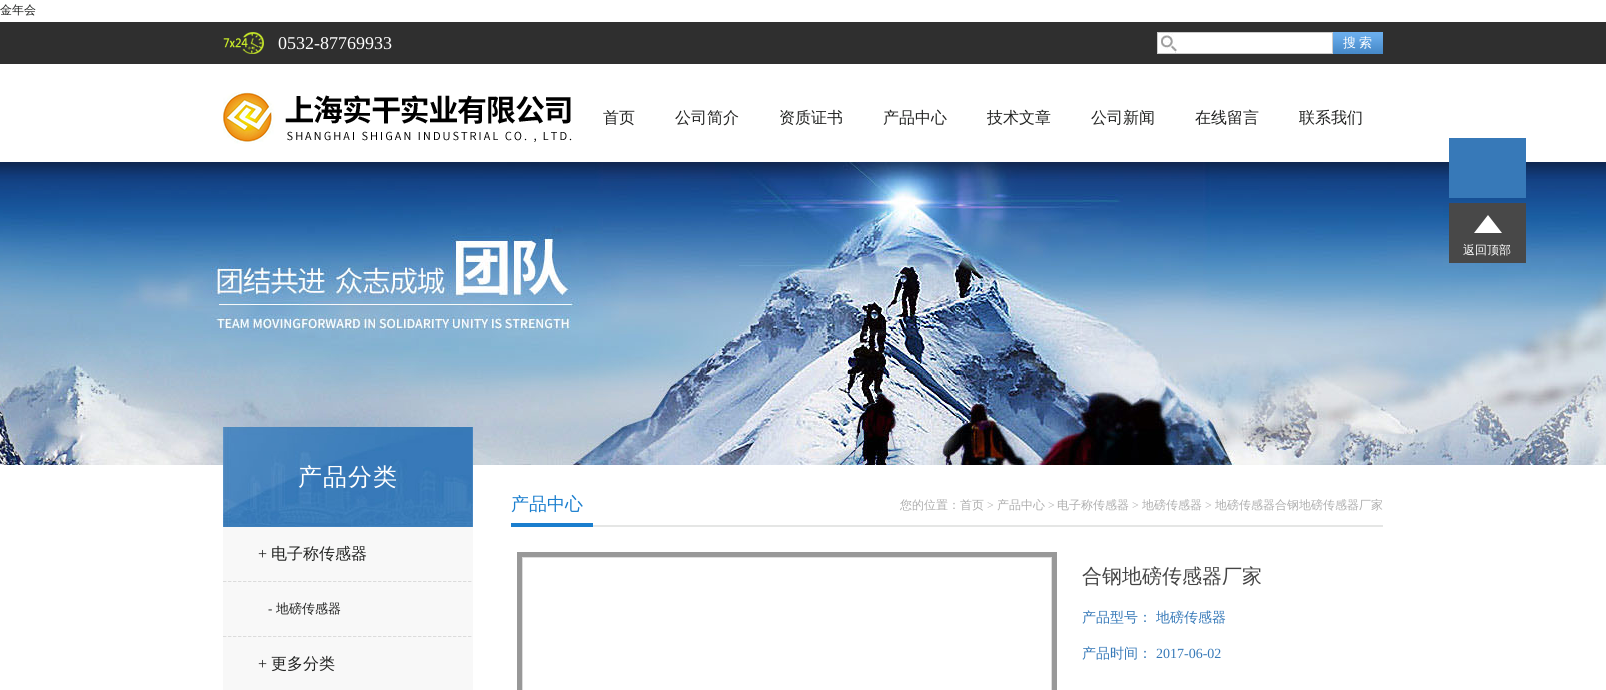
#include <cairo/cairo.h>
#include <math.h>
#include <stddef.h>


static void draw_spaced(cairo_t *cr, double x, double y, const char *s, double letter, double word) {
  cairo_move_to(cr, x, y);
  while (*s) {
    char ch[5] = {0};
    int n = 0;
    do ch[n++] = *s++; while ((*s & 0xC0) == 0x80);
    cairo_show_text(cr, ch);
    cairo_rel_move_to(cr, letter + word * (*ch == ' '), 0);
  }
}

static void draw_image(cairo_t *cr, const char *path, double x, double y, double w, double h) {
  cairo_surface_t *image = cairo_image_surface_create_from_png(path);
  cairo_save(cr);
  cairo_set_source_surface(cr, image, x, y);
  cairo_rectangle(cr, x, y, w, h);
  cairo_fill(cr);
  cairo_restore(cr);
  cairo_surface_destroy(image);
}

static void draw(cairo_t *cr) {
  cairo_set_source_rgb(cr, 1, 1, 1);
  cairo_paint(cr);
  cairo_set_source_rgb(cr, 47 / 255.0, 47 / 255.0, 47 / 255.0);
  cairo_rectangle(cr, 0, 22, 1606, 42);
  cairo_fill(cr);
  draw_image(cr, "images/1.png", 223, 32, 41, 22);
  cairo_set_source_rgb(cr, 1, 1, 1);
  cairo_rectangle(cr, 1158, 33, 174, 20);
  cairo_fill(cr);
  draw_image(cr, "images/2.png", 1161, 33, 16, 20);
  cairo_rectangle(cr, 1157.5, 32.5, 175, 21);
  cairo_set_source_rgb(cr, 204 / 255.0, 204 / 255.0, 204 / 255.0);
  cairo_set_line_width(cr, 1);
  cairo_stroke(cr);
  draw_image(cr, "images/3.png", 1333, 32, 50, 22);
  draw_image(cr, "images/6.png", 0, 162, 1606, 303);
  draw_image(cr, "images/4.png", 0, 162, 1606, 17);
  draw_image(cr, "images/5.png", 223, 92, 349, 52);
  cairo_set_source_rgb(cr, 55 / 255.0, 121 / 255.0, 184 / 255.0);
  cairo_rectangle(cr, 1449, 138, 77, 60);
  cairo_fill(cr);
  cairo_set_source_rgb(cr, 72 / 255.0, 72 / 255.0, 72 / 255.0);
  cairo_rectangle(cr, 1449, 203, 77, 60);
  cairo_fill(cr);
  draw_image(cr, "images/7.png", 1474, 215, 28, 18);
  cairo_set_source_rgb(cr, 248 / 255.0, 248 / 255.0, 248 / 255.0);
  cairo_rectangle(cr, 223, 527, 250, 163);
  cairo_fill(cr);
  draw_image(cr, "images/8.png", 223, 427, 250, 100);
  draw_image(cr, "images/9.png", 223, 581, 249, 1);
  draw_image(cr, "images/9.png", 223, 636, 249, 1);
  cairo_set_source_rgb(cr, 229 / 255.0, 230 / 255.0, 229 / 255.0);
  cairo_rectangle(cr, 593, 525, 790, 2);
  cairo_fill(cr);
  cairo_set_source_rgb(cr, 26 / 255.0, 126 / 255.0, 206 / 255.0);
  cairo_rectangle(cr, 511, 523, 82, 4);
  cairo_fill(cr);
  cairo_rectangle(cr, 519.5, 554.5, 535, 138);
  cairo_set_source_rgb(cr, 152 / 255.0, 152 / 255.0, 152 / 255.0);
  cairo_set_line_width(cr, 5);
  cairo_stroke(cr);
  cairo_rectangle(cr, 522.5, 557.5, 529, 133);
  cairo_set_source_rgb(cr, 221 / 255.0, 221 / 255.0, 221 / 255.0);
  cairo_set_line_width(cr, 1);
  cairo_stroke(cr);
  cairo_select_font_face(cr, "WenQuanYi Zen Hei Medium", CAIRO_FONT_SLANT_NORMAL, CAIRO_FONT_WEIGHT_NORMAL);
  cairo_set_font_size(cr, 12);
  cairo_set_source_rgb(cr, 34 / 255.0, 35 / 255.0, 34 / 255.0);
  cairo_move_to(cr, 0, 14);
  cairo_show_text(cr, "金年会");
  cairo_select_font_face(cr, "Liberation Serif", CAIRO_FONT_SLANT_NORMAL, CAIRO_FONT_WEIGHT_NORMAL);
  cairo_set_font_size(cr, 18);
  cairo_set_source_rgb(cr, 1, 1, 1);
  cairo_move_to(cr, 278, 49);
  cairo_show_text(cr, "0532-87769933");
  cairo_select_font_face(cr, "WenQuanYi Zen Hei Medium", CAIRO_FONT_SLANT_NORMAL, CAIRO_FONT_WEIGHT_NORMAL);
  cairo_set_font_size(cr, 13);
  draw_spaced(cr, 1343, 47, "搜 索", 0, -1);
  cairo_set_font_size(cr, 16);
  cairo_set_source_rgb(cr, 34 / 255.0, 35 / 255.0, 34 / 255.0);
  cairo_move_to(cr, 603, 123);
  cairo_show_text(cr, "首页");
  cairo_move_to(cr, 675, 123);
  cairo_show_text(cr, "公司简介");
  cairo_move_to(cr, 779, 123);
  cairo_show_text(cr, "资质证书");
  cairo_move_to(cr, 883, 123);
  cairo_show_text(cr, "产品中心");
  cairo_move_to(cr, 987, 123);
  cairo_show_text(cr, "技术文章");
  cairo_move_to(cr, 1091, 123);
  cairo_show_text(cr, "公司新闻");
  cairo_move_to(cr, 1195, 123);
  cairo_show_text(cr, "在线留言");
  cairo_move_to(cr, 1299, 123);
  cairo_show_text(cr, "联系我们");
  cairo_set_font_size(cr, 12);
  cairo_set_source_rgb(cr, 1, 1, 1);
  cairo_move_to(cr, 1463, 254);
  cairo_show_text(cr, "返回顶部");
  cairo_set_font_size(cr, 24);
  draw_spaced(cr, 298, 485, "产品分类", 1, 0);
  cairo_select_font_face(cr, "Liberation Serif", CAIRO_FONT_SLANT_NORMAL, CAIRO_FONT_WEIGHT_NORMAL);
  cairo_set_font_size(cr, 16);
  cairo_set_source_rgb(cr, 34 / 255.0, 35 / 255.0, 34 / 255.0);
  cairo_move_to(cr, 258, 559);
  cairo_show_text(cr, "+");
  cairo_select_font_face(cr, "WenQuanYi Zen Hei Medium", CAIRO_FONT_SLANT_NORMAL, CAIRO_FONT_WEIGHT_NORMAL);
  cairo_move_to(cr, 271, 559);
  cairo_show_text(cr, "电子称传感器");
  cairo_select_font_face(cr, "Liberation Serif", CAIRO_FONT_SLANT_NORMAL, CAIRO_FONT_WEIGHT_NORMAL);
  cairo_set_font_size(cr, 13);
  cairo_move_to(cr, 268, 613);
  cairo_show_text(cr, "-");
  cairo_select_font_face(cr, "WenQuanYi Zen Hei Medium", CAIRO_FONT_SLANT_NORMAL, CAIRO_FONT_WEIGHT_NORMAL);
  cairo_move_to(cr, 276, 613);
  cairo_show_text(cr, "地磅传感器");
  cairo_select_font_face(cr, "Liberation Serif", CAIRO_FONT_SLANT_NORMAL, CAIRO_FONT_WEIGHT_NORMAL);
  cairo_set_font_size(cr, 16);
  cairo_move_to(cr, 258, 669);
  cairo_show_text(cr, "+");
  cairo_select_font_face(cr, "WenQuanYi Zen Hei Medium", CAIRO_FONT_SLANT_NORMAL, CAIRO_FONT_WEIGHT_NORMAL);
  cairo_move_to(cr, 271, 669);
  cairo_show_text(cr, "更多分类");
  cairo_set_font_size(cr, 18);
  cairo_set_source_rgb(cr, 26 / 255.0, 126 / 255.0, 206 / 255.0);
  cairo_move_to(cr, 511, 510);
  cairo_show_text(cr, "产品中心");
  cairo_set_font_size(cr, 12);
  cairo_set_source_rgb(cr, 173 / 255.0, 173 / 255.0, 173 / 255.0);
  cairo_move_to(cr, 900, 509);
  cairo_show_text(cr, "您的位置：首页");
  cairo_select_font_face(cr, "Liberation Serif", CAIRO_FONT_SLANT_NORMAL, CAIRO_FONT_WEIGHT_NORMAL);
  cairo_move_to(cr, 987, 509);
  cairo_show_text(cr, ">");
  cairo_select_font_face(cr, "WenQuanYi Zen Hei Medium", CAIRO_FONT_SLANT_NORMAL, CAIRO_FONT_WEIGHT_NORMAL);
  cairo_move_to(cr, 997, 509);
  cairo_show_text(cr, "产品中心");
  cairo_select_font_face(cr, "Liberation Serif", CAIRO_FONT_SLANT_NORMAL, CAIRO_FONT_WEIGHT_NORMAL);
  cairo_move_to(cr, 1048, 509);
  cairo_show_text(cr, ">");
  cairo_select_font_face(cr, "WenQuanYi Zen Hei Medium", CAIRO_FONT_SLANT_NORMAL, CAIRO_FONT_WEIGHT_NORMAL);
  cairo_move_to(cr, 1057, 509);
  cairo_show_text(cr, "电子称传感器");
  cairo_select_font_face(cr, "Liberation Serif", CAIRO_FONT_SLANT_NORMAL, CAIRO_FONT_WEIGHT_NORMAL);
  cairo_move_to(cr, 1132, 509);
  cairo_show_text(cr, ">");
  cairo_select_font_face(cr, "WenQuanYi Zen Hei Medium", CAIRO_FONT_SLANT_NORMAL, CAIRO_FONT_WEIGHT_NORMAL);
  cairo_move_to(cr, 1142, 509);
  cairo_show_text(cr, "地磅传感器");
  cairo_select_font_face(cr, "Liberation Serif", CAIRO_FONT_SLANT_NORMAL, CAIRO_FONT_WEIGHT_NORMAL);
  cairo_move_to(cr, 1205, 509);
  cairo_show_text(cr, ">");
  cairo_select_font_face(cr, "WenQuanYi Zen Hei Medium", CAIRO_FONT_SLANT_NORMAL, CAIRO_FONT_WEIGHT_NORMAL);
  cairo_move_to(cr, 1215, 509);
  cairo_show_text(cr, "地磅传感器合钢地磅传感器厂家");
  cairo_set_font_size(cr, 20);
  cairo_set_source_rgb(cr, 68 / 255.0, 68 / 255.0, 68 / 255.0);
  cairo_move_to(cr, 1082, 583);
  cairo_show_text(cr, "合钢地磅传感器厂家");
  cairo_set_font_size(cr, 14);
  cairo_set_source_rgb(cr, 54 / 255.0, 121 / 255.0, 184 / 255.0);
  cairo_move_to(cr, 1082, 622);
  cairo_show_text(cr, "产品型号：");
  cairo_move_to(cr, 1156, 622);
  cairo_show_text(cr, "地磅传感器");
  cairo_move_to(cr, 1082, 658);
  cairo_show_text(cr, "产品时间：");
  cairo_select_font_face(cr, "Liberation Serif", CAIRO_FONT_SLANT_NORMAL, CAIRO_FONT_WEIGHT_NORMAL);
  cairo_move_to(cr, 1156, 658);
  cairo_show_text(cr, "2017-06-02");
}

int main(void) {
  cairo_surface_t *surface = cairo_image_surface_create(CAIRO_FORMAT_RGB24, 1606, 690);
  cairo_t *cr = cairo_create(surface);
  cairo_font_options_t *options = cairo_font_options_create();
  cairo_font_options_set_hint_metrics(options, CAIRO_HINT_METRICS_OFF);
  cairo_font_options_set_hint_style(options, CAIRO_HINT_STYLE_NONE);
  cairo_set_font_options(cr, options);
  cairo_set_miter_limit(cr, 4);
  draw(cr);
  cairo_surface_write_to_png(surface, "out.png");
  cairo_font_options_destroy(options);
  cairo_destroy(cr);
  cairo_surface_destroy(surface);
  return 0;
}
